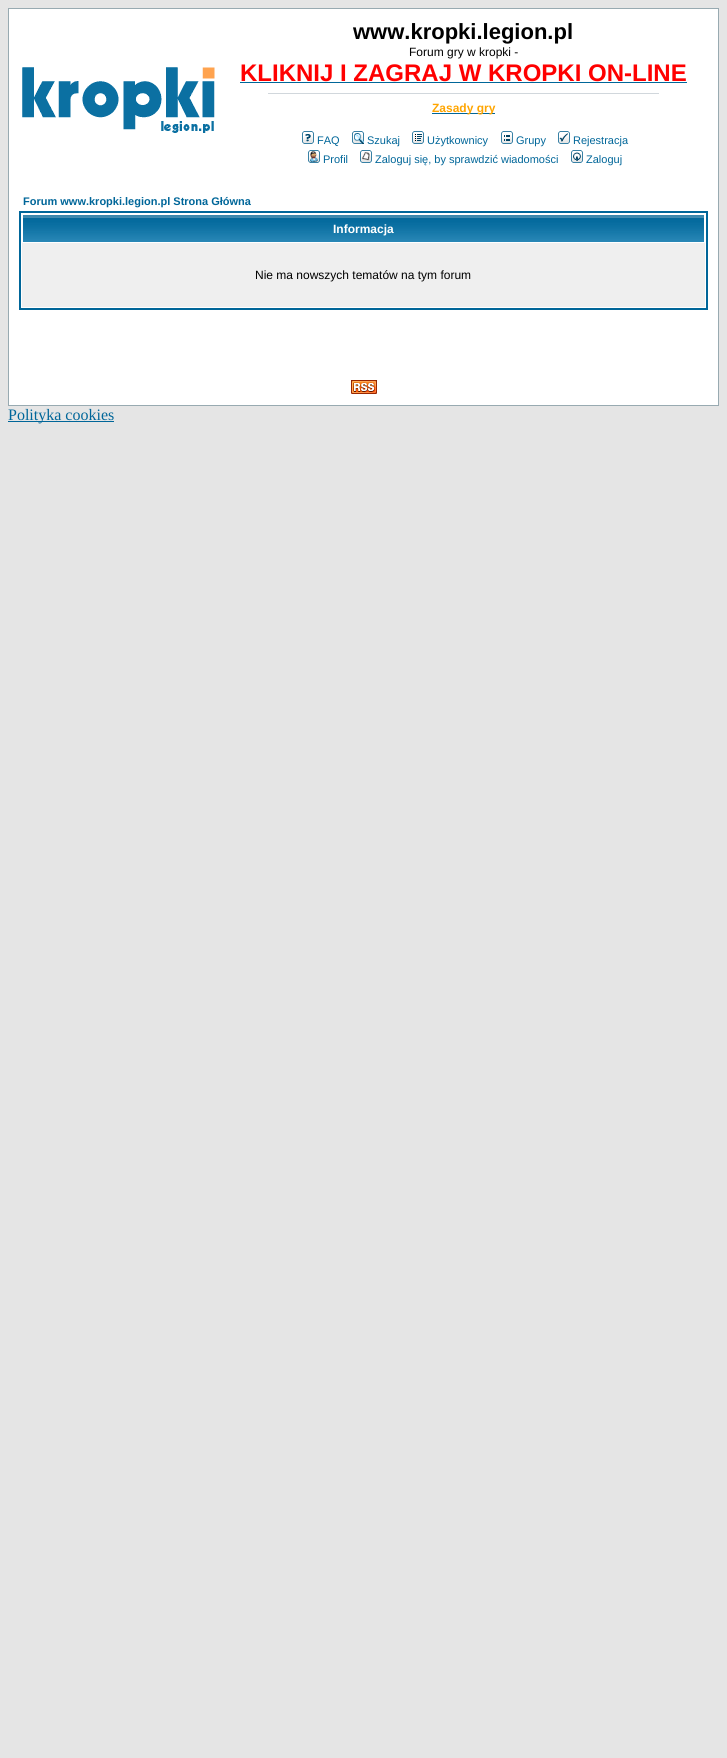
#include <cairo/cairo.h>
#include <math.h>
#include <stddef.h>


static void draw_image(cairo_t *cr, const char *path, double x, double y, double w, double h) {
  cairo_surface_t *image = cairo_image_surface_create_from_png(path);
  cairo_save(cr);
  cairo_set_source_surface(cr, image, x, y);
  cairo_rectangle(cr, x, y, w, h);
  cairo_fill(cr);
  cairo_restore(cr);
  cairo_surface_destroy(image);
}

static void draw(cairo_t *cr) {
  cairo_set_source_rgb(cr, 229 / 255.0, 229 / 255.0, 229 / 255.0);
  cairo_paint(cr);
  cairo_set_source_rgb(cr, 1, 1, 1);
  cairo_rectangle(cr, 8.5, 8.5, 710, 397);
  cairo_fill_preserve(cr);
  cairo_set_source_rgb(cr, 152 / 255.0, 170 / 255.0, 177 / 255.0);
  cairo_set_line_width(cr, 1);
  cairo_stroke(cr);
  draw_image(cr, "images/1.png", 22, 67, 193, 66);
  cairo_set_source_rgb(cr, 0, 102 / 255.0, 153 / 255.0);
  cairo_rectangle(cr, 240, 82, 447, 1);
  cairo_fill(cr);
  cairo_set_source_rgb(cr, 209 / 255.0, 215 / 255.0, 220 / 255.0);
  cairo_rectangle(cr, 268, 93, 391, 1);
  cairo_fill(cr);
  cairo_set_source_rgb(cr, 0, 102 / 255.0, 153 / 255.0);
  cairo_rectangle(cr, 432, 113, 63, 1);
  cairo_fill(cr);
  draw_image(cr, "images/2.png", 302, 131, 12, 13);
  draw_image(cr, "images/3.png", 352, 131, 12, 13);
  draw_image(cr, "images/4.png", 412, 131, 12, 13);
  draw_image(cr, "images/5.png", 501, 131, 12, 13);
  draw_image(cr, "images/6.png", 558, 131, 12, 13);
  draw_image(cr, "images/7.png", 308, 150, 12, 13);
  draw_image(cr, "images/8.png", 360, 150, 12, 13);
  draw_image(cr, "images/9.png", 571, 150, 12, 13);
  cairo_rectangle(cr, 20, 212, 687, 97);
  cairo_set_line_width(cr, 2);
  cairo_stroke(cr);
  draw_image(cr, "images/10.png", 23, 215, 681, 27);
  cairo_set_source_rgb(cr, 239 / 255.0, 239 / 255.0, 239 / 255.0);
  cairo_rectangle(cr, 22, 243, 683, 64);
  cairo_fill(cr);
  draw_image(cr, "images/11.png", 351, 380, 26, 14);
  cairo_set_source_rgb(cr, 0, 102 / 255.0, 153 / 255.0);
  cairo_rectangle(cr, 8, 421, 106, 1);
  cairo_fill(cr);
  cairo_select_font_face(cr, "Liberation Sans", CAIRO_FONT_SLANT_NORMAL, CAIRO_FONT_WEIGHT_BOLD);
  cairo_set_font_size(cr, 22);
  cairo_set_source_rgb(cr, 0, 0, 0);
  cairo_move_to(cr, 353, 39);
  cairo_show_text(cr, "www.kropki.legion.pl");
  cairo_select_font_face(cr, "Liberation Sans", CAIRO_FONT_SLANT_NORMAL, CAIRO_FONT_WEIGHT_NORMAL);
  cairo_set_font_size(cr, 12);
  cairo_move_to(cr, 409, 56);
  cairo_show_text(cr, "Forum gry w kropki -");
  cairo_select_font_face(cr, "Liberation Sans", CAIRO_FONT_SLANT_NORMAL, CAIRO_FONT_WEIGHT_BOLD);
  cairo_set_font_size(cr, 24);
  cairo_set_source_rgb(cr, 1, 0, 0);
  cairo_move_to(cr, 240, 81);
  cairo_show_text(cr, "KLIKNIJ I ZAGRAJ W KROPKI ON-LINE");
  cairo_set_font_size(cr, 12);
  cairo_set_source_rgb(cr, 1, 165 / 255.0, 0);
  cairo_move_to(cr, 432, 112);
  cairo_show_text(cr, "Zasady gry");
  cairo_select_font_face(cr, "Liberation Sans", CAIRO_FONT_SLANT_NORMAL, CAIRO_FONT_WEIGHT_NORMAL);
  cairo_set_font_size(cr, 11);
  cairo_set_source_rgb(cr, 0, 102 / 255.0, 153 / 255.0);
  cairo_move_to(cr, 317, 144);
  cairo_show_text(cr, "FAQ");
  cairo_move_to(cr, 367, 144);
  cairo_show_text(cr, "Szukaj");
  cairo_move_to(cr, 427, 144);
  cairo_show_text(cr, "Użytkownicy");
  cairo_move_to(cr, 516, 144);
  cairo_show_text(cr, "Grupy");
  cairo_move_to(cr, 573, 144);
  cairo_show_text(cr, "Rejestracja");
  cairo_move_to(cr, 323, 163);
  cairo_show_text(cr, "Profil");
  cairo_move_to(cr, 375, 163);
  cairo_show_text(cr, "Zaloguj się, by sprawdzić wiadomości");
  cairo_move_to(cr, 586, 163);
  cairo_show_text(cr, "Zaloguj");
  cairo_select_font_face(cr, "Liberation Sans", CAIRO_FONT_SLANT_NORMAL, CAIRO_FONT_WEIGHT_BOLD);
  cairo_move_to(cr, 23, 205);
  cairo_show_text(cr, "Forum www.kropki.legion.pl Strona Główna");
  cairo_set_font_size(cr, 12);
  cairo_set_source_rgb(cr, 1, 1, 1);
  cairo_move_to(cr, 333, 233);
  cairo_show_text(cr, "Informacja");
  cairo_select_font_face(cr, "Liberation Sans", CAIRO_FONT_SLANT_NORMAL, CAIRO_FONT_WEIGHT_NORMAL);
  cairo_set_source_rgb(cr, 0, 0, 0);
  cairo_move_to(cr, 255, 279);
  cairo_show_text(cr, "Nie ma nowszych tematów na tym forum");
  cairo_select_font_face(cr, "Liberation Serif", CAIRO_FONT_SLANT_NORMAL, CAIRO_FONT_WEIGHT_NORMAL);
  cairo_set_font_size(cr, 16);
  cairo_set_source_rgb(cr, 0, 102 / 255.0, 153 / 255.0);
  cairo_move_to(cr, 8, 420);
  cairo_show_text(cr, "Polityka cookies");
}

int main(void) {
  cairo_surface_t *surface = cairo_image_surface_create(CAIRO_FORMAT_RGB24, 727, 1758);
  cairo_t *cr = cairo_create(surface);
  cairo_font_options_t *options = cairo_font_options_create();
  cairo_font_options_set_hint_metrics(options, CAIRO_HINT_METRICS_OFF);
  cairo_font_options_set_hint_style(options, CAIRO_HINT_STYLE_NONE);
  cairo_set_font_options(cr, options);
  cairo_set_miter_limit(cr, 4);
  draw(cr);
  cairo_surface_write_to_png(surface, "out.png");
  cairo_font_options_destroy(options);
  cairo_destroy(cr);
  cairo_surface_destroy(surface);
  return 0;
}
